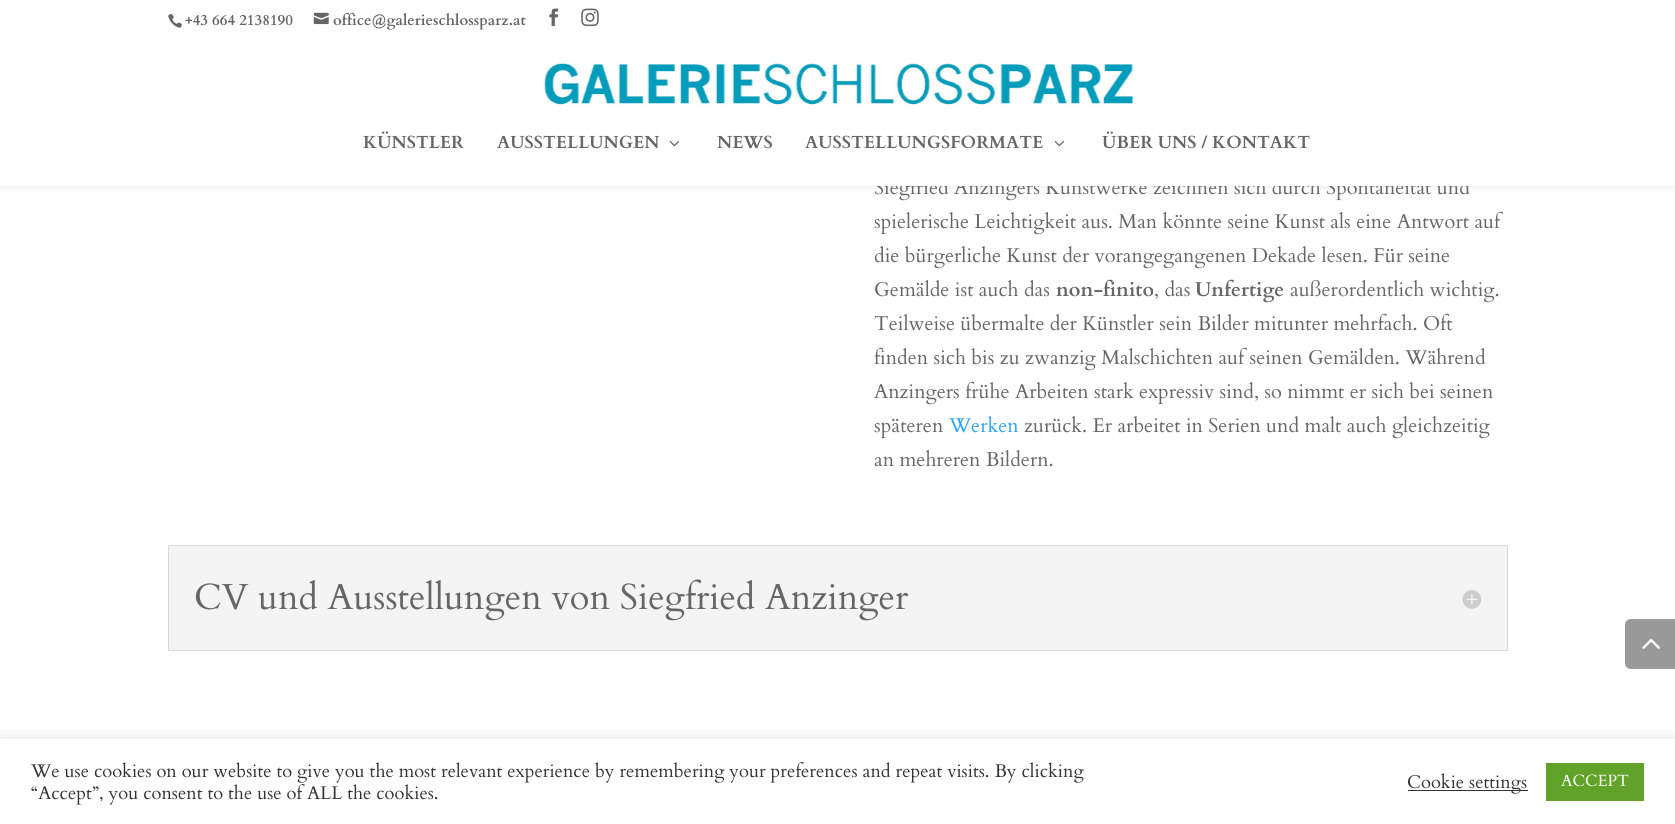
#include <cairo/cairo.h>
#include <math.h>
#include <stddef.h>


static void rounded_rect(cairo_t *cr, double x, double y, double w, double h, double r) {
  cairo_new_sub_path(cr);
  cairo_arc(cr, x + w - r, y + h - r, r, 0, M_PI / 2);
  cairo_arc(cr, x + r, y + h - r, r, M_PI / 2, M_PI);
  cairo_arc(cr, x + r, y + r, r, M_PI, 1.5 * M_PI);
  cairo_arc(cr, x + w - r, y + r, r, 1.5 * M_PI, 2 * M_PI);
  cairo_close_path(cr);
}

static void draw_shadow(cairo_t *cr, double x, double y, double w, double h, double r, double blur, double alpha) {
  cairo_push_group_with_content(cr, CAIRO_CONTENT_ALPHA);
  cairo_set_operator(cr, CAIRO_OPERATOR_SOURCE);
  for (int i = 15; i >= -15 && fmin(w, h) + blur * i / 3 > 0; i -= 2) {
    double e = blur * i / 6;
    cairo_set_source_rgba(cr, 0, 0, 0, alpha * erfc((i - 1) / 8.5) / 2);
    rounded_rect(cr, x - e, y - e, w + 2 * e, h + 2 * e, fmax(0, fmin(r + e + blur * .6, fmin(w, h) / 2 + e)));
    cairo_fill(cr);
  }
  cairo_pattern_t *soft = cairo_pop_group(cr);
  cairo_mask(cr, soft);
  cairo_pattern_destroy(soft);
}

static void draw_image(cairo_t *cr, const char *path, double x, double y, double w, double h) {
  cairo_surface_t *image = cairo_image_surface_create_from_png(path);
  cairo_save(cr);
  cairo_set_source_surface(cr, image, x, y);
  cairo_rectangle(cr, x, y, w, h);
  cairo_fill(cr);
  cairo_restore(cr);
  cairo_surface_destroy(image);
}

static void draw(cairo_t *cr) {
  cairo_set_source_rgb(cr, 1, 1, 1);
  cairo_paint(cr);
  cairo_set_source_rgb(cr, 0, 0, 0);
  draw_shadow(cr, 0, 40, 1675, 146, 0, 4.5, 0.1);
  draw_image(cr, "images/1.png", 168, 14, 14, 14);
  draw_image(cr, "images/2.png", 313, 12, 16, 13);
  draw_image(cr, "images/3.png", 549, 8, 10, 19);
  draw_image(cr, "images/4.png", 581, 8, 18, 19);
  cairo_set_source_rgb(cr, 244 / 255.0, 244 / 255.0, 244 / 255.0);
  cairo_rectangle(cr, 168.5, 545.5, 1339, 105);
  cairo_fill_preserve(cr);
  cairo_set_source_rgb(cr, 217 / 255.0, 217 / 255.0, 217 / 255.0);
  cairo_set_line_width(cr, 1);
  cairo_stroke(cr);
  draw_image(cr, "images/7.png", 1462, 590, 20, 19);
  cairo_set_source_rgb(cr, 153 / 255.0, 153 / 255.0, 153 / 255.0);
  cairo_new_path(cr);
  cairo_move_to(cr, 1631, 619);
  cairo_line_to(cr, 1675, 619);
  cairo_line_to(cr, 1675, 669);
  cairo_line_to(cr, 1631, 669);
  cairo_curve_to(cr, 1627.5, 669, 1625, 666.5, 1625, 663);
  cairo_line_to(cr, 1625, 625);
  cairo_curve_to(cr, 1625, 621.5, 1627.5, 619, 1631, 619);
  cairo_close_path(cr);
  cairo_fill(cr);
  draw_image(cr, "images/8.png", 1642, 639, 18, 10);
  cairo_save(cr);
  cairo_rectangle(cr, 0, 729, 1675, 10);
  cairo_clip(cr);
  cairo_set_source_rgb(cr, 172 / 255.0, 171 / 255.0, 171 / 255.0);
  draw_shadow(cr, 0, 738, 1675, 86, 0, 6, 0.3);
  cairo_restore(cr);
  cairo_set_source_rgb(cr, 51 / 255.0, 51 / 255.0, 51 / 255.0);
  cairo_rectangle(cr, 1408, 790, 120, 1);
  cairo_fill(cr);
  cairo_set_source_rgb(cr, 97 / 255.0, 162 / 255.0, 41 / 255.0);
  cairo_rectangle(cr, 1546, 763, 98, 38);
  cairo_fill(cr);
  cairo_select_font_face(cr, "Cardo", CAIRO_FONT_SLANT_NORMAL, CAIRO_FONT_WEIGHT_BOLD);
  cairo_set_font_size(cr, 15);
  cairo_set_source_rgb(cr, 102 / 255.0, 102 / 255.0, 102 / 255.0);
  cairo_move_to(cr, 185, 25);
  cairo_show_text(cr, "+43 664 2138190");
  cairo_move_to(cr, 333, 25);
  cairo_show_text(cr, "office@galerieschlossparz.at");
  cairo_select_font_face(cr, "Cardo", CAIRO_FONT_SLANT_NORMAL, CAIRO_FONT_WEIGHT_NORMAL);
  cairo_set_font_size(cr, 20);
  cairo_move_to(cr, 874, 194);
  cairo_show_text(cr, "Siegfried Anzingers Kunstwerke zeichnen sich durch Spontaneität und");
  cairo_set_source_rgb(cr, 1, 1, 1);
  cairo_rectangle(cr, 0, 34, 1675, 152);
  cairo_fill(cr);
  cairo_select_font_face(cr, "Cardo", CAIRO_FONT_SLANT_NORMAL, CAIRO_FONT_WEIGHT_BOLD);
  cairo_set_font_size(cr, 17.5);
  cairo_set_source_rgb(cr, 102 / 255.0, 102 / 255.0, 102 / 255.0);
  cairo_move_to(cr, 1102, 148);
  cairo_show_text(cr, "ÜBER UNS / KONTAKT");
  draw_image(cr, "images/6.png", 1054, 141, 10, 6);
  cairo_move_to(cr, 805, 148);
  cairo_show_text(cr, "AUSSTELLUNGSFORMATE");
  cairo_move_to(cr, 717, 148);
  cairo_show_text(cr, "NEWS");
  draw_image(cr, "images/6.png", 669, 141, 10, 6);
  cairo_move_to(cr, 497, 148);
  cairo_show_text(cr, "AUSSTELLUNGEN");
  cairo_move_to(cr, 363, 148);
  cairo_show_text(cr, "KÜNSTLER");
  draw_image(cr, "images/5.png", 544, 60, 589, 48);
  cairo_select_font_face(cr, "Cardo", CAIRO_FONT_SLANT_NORMAL, CAIRO_FONT_WEIGHT_NORMAL);
  cairo_set_font_size(cr, 20);
  cairo_move_to(cr, 874, 228);
  cairo_show_text(cr, "spielerische Leichtigkeit aus. Man könnte seine Kunst als eine Antwort auf");
  cairo_move_to(cr, 874, 262);
  cairo_show_text(cr, "die bürgerliche Kunst der vorangegangenen Dekade lesen. Für seine");
  cairo_move_to(cr, 874, 296);
  cairo_show_text(cr, "Gemälde ist auch das");
  cairo_select_font_face(cr, "Cardo", CAIRO_FONT_SLANT_NORMAL, CAIRO_FONT_WEIGHT_BOLD);
  cairo_move_to(cr, 1056, 296);
  cairo_show_text(cr, "non-finito");
  cairo_select_font_face(cr, "Cardo", CAIRO_FONT_SLANT_NORMAL, CAIRO_FONT_WEIGHT_NORMAL);
  cairo_move_to(cr, 1154, 296);
  cairo_show_text(cr, ", das");
  cairo_select_font_face(cr, "Cardo", CAIRO_FONT_SLANT_NORMAL, CAIRO_FONT_WEIGHT_BOLD);
  cairo_move_to(cr, 1195, 296);
  cairo_show_text(cr, "Unfertige");
  cairo_select_font_face(cr, "Cardo", CAIRO_FONT_SLANT_NORMAL, CAIRO_FONT_WEIGHT_NORMAL);
  cairo_move_to(cr, 1290, 296);
  cairo_show_text(cr, "außerordentlich wichtig.");
  cairo_move_to(cr, 874, 330);
  cairo_show_text(cr, "Teilweise übermalte der Künstler sein Bilder mitunter mehrfach. Oft");
  cairo_move_to(cr, 874, 364);
  cairo_show_text(cr, "finden sich bis zu zwanzig Malschichten auf seinen Gemälden. Während");
  cairo_move_to(cr, 874, 398);
  cairo_show_text(cr, "Anzingers frühe Arbeiten stark expressiv sind, so nimmt er sich bei seinen");
  cairo_move_to(cr, 874, 432);
  cairo_show_text(cr, "späteren");
  cairo_set_source_rgb(cr, 46 / 255.0, 163 / 255.0, 242 / 255.0);
  cairo_move_to(cr, 949, 432);
  cairo_show_text(cr, "Werken");
  cairo_set_source_rgb(cr, 102 / 255.0, 102 / 255.0, 102 / 255.0);
  cairo_move_to(cr, 1024, 432);
  cairo_show_text(cr, "zurück. Er arbeitet in Serien und malt auch gleichzeitig");
  cairo_move_to(cr, 874, 466);
  cairo_show_text(cr, "an mehreren Bildern.");
  cairo_set_font_size(cr, 36.25);
  cairo_move_to(cr, 194, 609);
  cairo_show_text(cr, "CV und Ausstellungen von Siegfried Anzinger");
  cairo_set_font_size(cr, 18.33);
  cairo_set_source_rgb(cr, 51 / 255.0, 51 / 255.0, 51 / 255.0);
  cairo_move_to(cr, 31, 777);
  cairo_show_text(cr, "We use cookies on our website to give you the most relevant experience by remembering your preferences and repeat visits. By clicking");
  cairo_move_to(cr, 31, 799);
  cairo_show_text(cr, "“Accept”, you consent to the use of ALL the cookies.");
  cairo_move_to(cr, 1407, 788);
  cairo_show_text(cr, "Cookie settings");
  cairo_set_font_size(cr, 16.25);
  cairo_set_source_rgb(cr, 1, 1, 1);
  cairo_move_to(cr, 1561, 786);
  cairo_show_text(cr, "ACCEPT");
}

int main(void) {
  cairo_surface_t *surface = cairo_image_surface_create(CAIRO_FORMAT_RGB24, 1675, 824);
  cairo_t *cr = cairo_create(surface);
  cairo_font_options_t *options = cairo_font_options_create();
  cairo_font_options_set_hint_metrics(options, CAIRO_HINT_METRICS_OFF);
  cairo_font_options_set_hint_style(options, CAIRO_HINT_STYLE_NONE);
  cairo_set_font_options(cr, options);
  cairo_set_miter_limit(cr, 4);
  draw(cr);
  cairo_surface_write_to_png(surface, "out.png");
  cairo_font_options_destroy(options);
  cairo_destroy(cr);
  cairo_surface_destroy(surface);
  return 0;
}
